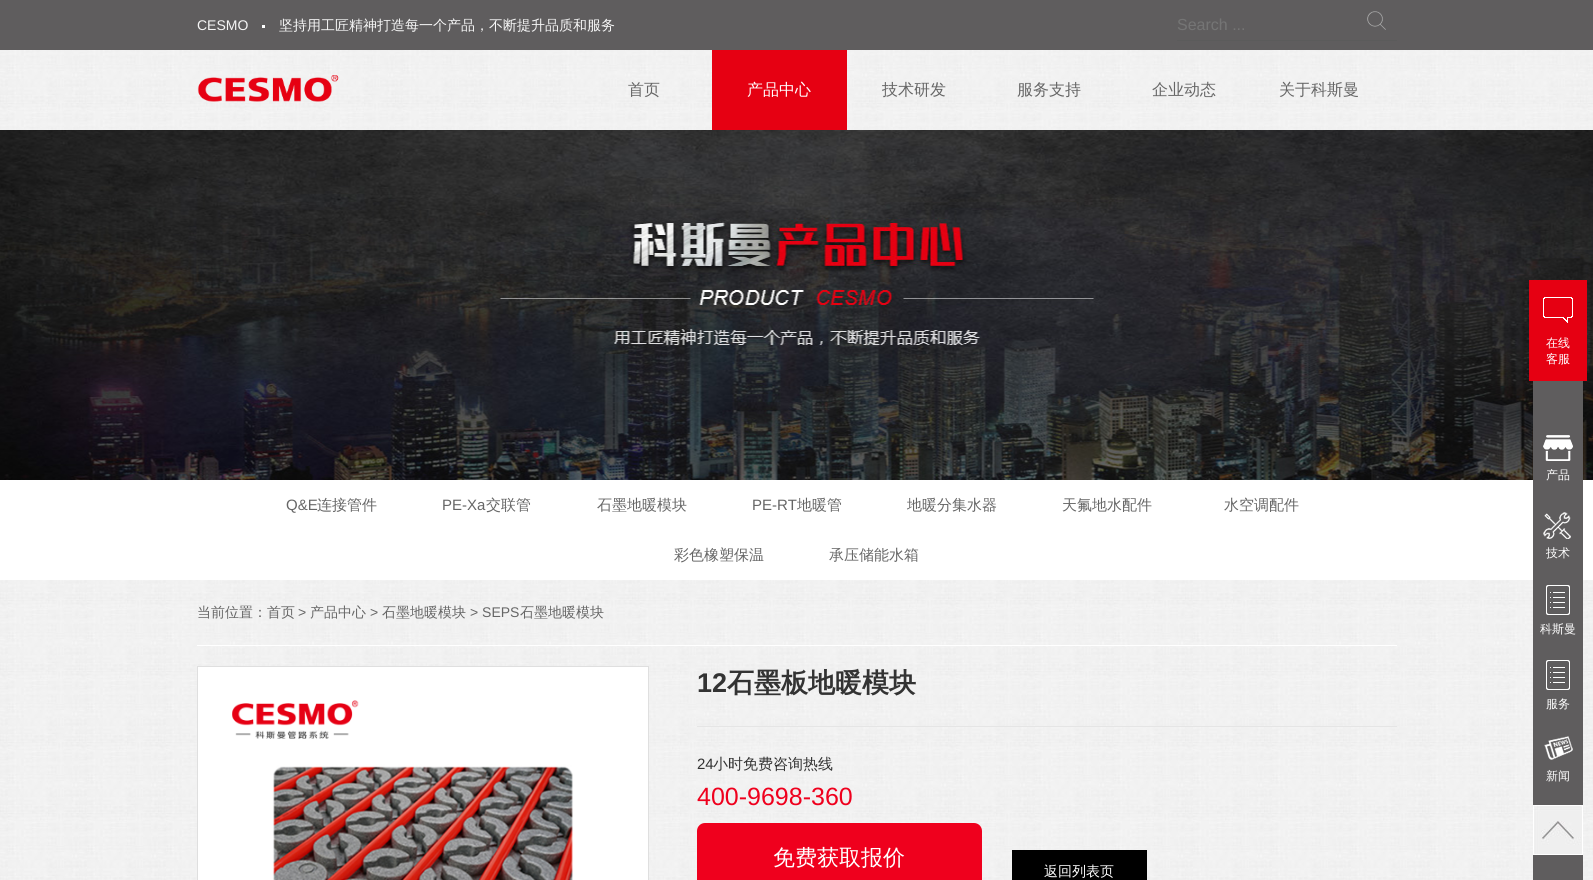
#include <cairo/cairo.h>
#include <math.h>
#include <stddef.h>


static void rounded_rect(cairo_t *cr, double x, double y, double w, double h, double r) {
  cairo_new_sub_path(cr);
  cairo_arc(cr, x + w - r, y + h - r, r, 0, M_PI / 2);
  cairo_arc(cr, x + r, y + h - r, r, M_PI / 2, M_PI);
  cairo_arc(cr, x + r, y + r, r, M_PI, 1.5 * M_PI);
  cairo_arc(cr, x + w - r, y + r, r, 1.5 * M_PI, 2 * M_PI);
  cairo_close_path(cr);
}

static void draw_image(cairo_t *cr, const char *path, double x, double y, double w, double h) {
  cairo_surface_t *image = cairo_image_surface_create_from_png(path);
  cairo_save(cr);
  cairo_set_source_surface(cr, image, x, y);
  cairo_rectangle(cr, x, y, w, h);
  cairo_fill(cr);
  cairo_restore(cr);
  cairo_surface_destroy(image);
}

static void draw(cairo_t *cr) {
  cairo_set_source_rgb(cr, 1, 1, 1);
  cairo_paint(cr);
  draw_image(cr, "images/1.png", 0, 50, 1593, 830);
  cairo_set_source_rgb(cr, 95 / 255.0, 93 / 255.0, 94 / 255.0);
  cairo_rectangle(cr, 0, 0, 1593, 50);
  cairo_fill(cr);
  cairo_set_source_rgb(cr, 1, 1, 1);
  cairo_rectangle(cr, 262, 25, 3, 3);
  cairo_fill(cr);
  cairo_set_source_rgb(cr, 91 / 255.0, 91 / 255.0, 91 / 255.0);
  cairo_rectangle(cr, 1177, 40, 220, 1);
  cairo_fill(cr);
  draw_image(cr, "images/2.png", 1367, 11, 19, 19);
  draw_image(cr, "images/3.png", 197, 75, 142, 27);
  cairo_set_source_rgb(cr, 230 / 255.0, 0, 18 / 255.0);
  cairo_rectangle(cr, 712, 50, 135, 80);
  cairo_fill(cr);
  draw_image(cr, "images/4.png", 0, 130, 1593, 350);
  cairo_set_source_rgb(cr, 1, 1, 1);
  cairo_rectangle(cr, 0, 480, 1593, 100);
  cairo_fill(cr);
  cairo_rectangle(cr, 197, 645, 1200, 1);
  cairo_fill(cr);
  cairo_rectangle(cr, 197.5, 666.5, 451, 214);
  cairo_set_source_rgb(cr, 223 / 255.0, 223 / 255.0, 223 / 255.0);
  cairo_set_line_width(cr, 1);
  cairo_stroke(cr);
  draw_image(cr, "images/5.png", 198, 667, 450, 213);
  cairo_set_source_rgb(cr, 229 / 255.0, 229 / 255.0, 229 / 255.0);
  cairo_rectangle(cr, 697, 726, 700, 1);
  cairo_fill(cr);
  cairo_set_source_rgb(cr, 239 / 255.0, 0, 29 / 255.0);
  rounded_rect(cr, 697, 823, 285, 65, 8);
  cairo_fill(cr);
  cairo_set_source_rgb(cr, 0, 0, 0);
  cairo_rectangle(cr, 1012, 850, 135, 30);
  cairo_fill(cr);
  cairo_set_source_rgb(cr, 95 / 255.0, 93 / 255.0, 94 / 255.0);
  cairo_rectangle(cr, 1533, 381, 50, 499);
  cairo_fill(cr);
  cairo_set_source_rgb(cr, 230 / 255.0, 0, 18 / 255.0);
  cairo_rectangle(cr, 1529, 280, 58, 101);
  cairo_fill(cr);
  draw_image(cr, "images/6.png", 1543, 297, 30, 26);
  draw_image(cr, "images/7.png", 1543, 435, 30, 26);
  draw_image(cr, "images/8.png", 1543, 512, 28, 27);
  draw_image(cr, "images/9.png", 1546, 585, 24, 30);
  draw_image(cr, "images/9.png", 1546, 660, 24, 30);
  draw_image(cr, "images/10.png", 1544, 736, 29, 24);
  draw_image(cr, "images/11.png", 1533, 805, 50, 50);
  cairo_select_font_face(cr, "Liberation Sans", CAIRO_FONT_SLANT_NORMAL, CAIRO_FONT_WEIGHT_NORMAL);
  cairo_set_font_size(cr, 14);
  cairo_set_source_rgb(cr, 246 / 255.0, 246 / 255.0, 246 / 255.0);
  cairo_move_to(cr, 197, 30);
  cairo_show_text(cr, "CESMO");
  cairo_select_font_face(cr, "WenQuanYi Zen Hei Medium", CAIRO_FONT_SLANT_NORMAL, CAIRO_FONT_WEIGHT_NORMAL);
  cairo_move_to(cr, 279, 30);
  cairo_show_text(cr, "坚持用工匠精神打造每一个产品，不断提升品质和服务");
  cairo_select_font_face(cr, "Liberation Sans", CAIRO_FONT_SLANT_NORMAL, CAIRO_FONT_WEIGHT_NORMAL);
  cairo_set_font_size(cr, 16);
  cairo_set_source_rgb(cr, 117 / 255.0, 117 / 255.0, 117 / 255.0);
  cairo_move_to(cr, 1177, 30);
  cairo_show_text(cr, "Search ...");
  cairo_select_font_face(cr, "WenQuanYi Zen Hei Medium", CAIRO_FONT_SLANT_NORMAL, CAIRO_FONT_WEIGHT_NORMAL);
  cairo_set_source_rgb(cr, 102 / 255.0, 102 / 255.0, 102 / 255.0);
  cairo_move_to(cr, 628, 95);
  cairo_show_text(cr, "首页");
  cairo_set_source_rgb(cr, 1, 1, 1);
  cairo_move_to(cr, 747, 95);
  cairo_show_text(cr, "产品中心");
  cairo_set_source_rgb(cr, 102 / 255.0, 102 / 255.0, 102 / 255.0);
  cairo_move_to(cr, 882, 95);
  cairo_show_text(cr, "技术研发");
  cairo_move_to(cr, 1017, 95);
  cairo_show_text(cr, "服务支持");
  cairo_move_to(cr, 1152, 95);
  cairo_show_text(cr, "企业动态");
  cairo_move_to(cr, 1279, 95);
  cairo_show_text(cr, "关于科斯曼");
  cairo_select_font_face(cr, "Liberation Sans", CAIRO_FONT_SLANT_NORMAL, CAIRO_FONT_WEIGHT_NORMAL);
  cairo_set_font_size(cr, 15);
  cairo_move_to(cr, 286, 510);
  cairo_show_text(cr, "Q&E");
  cairo_select_font_face(cr, "WenQuanYi Zen Hei Medium", CAIRO_FONT_SLANT_NORMAL, CAIRO_FONT_WEIGHT_NORMAL);
  cairo_move_to(cr, 317, 510);
  cairo_show_text(cr, "连接管件");
  cairo_select_font_face(cr, "Liberation Sans", CAIRO_FONT_SLANT_NORMAL, CAIRO_FONT_WEIGHT_NORMAL);
  cairo_move_to(cr, 442, 510);
  cairo_show_text(cr, "PE-Xa");
  cairo_select_font_face(cr, "WenQuanYi Zen Hei Medium", CAIRO_FONT_SLANT_NORMAL, CAIRO_FONT_WEIGHT_NORMAL);
  cairo_move_to(cr, 486, 510);
  cairo_show_text(cr, "交联管");
  cairo_move_to(cr, 597, 510);
  cairo_show_text(cr, "石墨地暖模块");
  cairo_select_font_face(cr, "Liberation Sans", CAIRO_FONT_SLANT_NORMAL, CAIRO_FONT_WEIGHT_NORMAL);
  cairo_move_to(cr, 752, 510);
  cairo_show_text(cr, "PE-RT");
  cairo_select_font_face(cr, "WenQuanYi Zen Hei Medium", CAIRO_FONT_SLANT_NORMAL, CAIRO_FONT_WEIGHT_NORMAL);
  cairo_move_to(cr, 797, 510);
  cairo_show_text(cr, "地暖管");
  cairo_move_to(cr, 907, 510);
  cairo_show_text(cr, "地暖分集水器");
  cairo_move_to(cr, 1062, 510);
  cairo_show_text(cr, "天氟地水配件");
  cairo_move_to(cr, 1224, 510);
  cairo_show_text(cr, "水空调配件");
  cairo_move_to(cr, 674, 560);
  cairo_show_text(cr, "彩色橡塑保温");
  cairo_move_to(cr, 829, 560);
  cairo_show_text(cr, "承压储能水箱");
  cairo_set_font_size(cr, 14);
  cairo_move_to(cr, 197, 617);
  cairo_show_text(cr, "当前位置：首页");
  cairo_select_font_face(cr, "Liberation Sans", CAIRO_FONT_SLANT_NORMAL, CAIRO_FONT_WEIGHT_NORMAL);
  cairo_move_to(cr, 298, 617);
  cairo_show_text(cr, ">");
  cairo_select_font_face(cr, "WenQuanYi Zen Hei Medium", CAIRO_FONT_SLANT_NORMAL, CAIRO_FONT_WEIGHT_NORMAL);
  cairo_move_to(cr, 310, 617);
  cairo_show_text(cr, "产品中心");
  cairo_select_font_face(cr, "Liberation Sans", CAIRO_FONT_SLANT_NORMAL, CAIRO_FONT_WEIGHT_NORMAL);
  cairo_move_to(cr, 370, 617);
  cairo_show_text(cr, ">");
  cairo_select_font_face(cr, "WenQuanYi Zen Hei Medium", CAIRO_FONT_SLANT_NORMAL, CAIRO_FONT_WEIGHT_NORMAL);
  cairo_move_to(cr, 382, 617);
  cairo_show_text(cr, "石墨地暖模块");
  cairo_select_font_face(cr, "Liberation Sans", CAIRO_FONT_SLANT_NORMAL, CAIRO_FONT_WEIGHT_NORMAL);
  cairo_move_to(cr, 470, 617);
  cairo_show_text(cr, "> SEPS");
  cairo_select_font_face(cr, "WenQuanYi Zen Hei Medium", CAIRO_FONT_SLANT_NORMAL, CAIRO_FONT_WEIGHT_NORMAL);
  cairo_move_to(cr, 520, 617);
  cairo_show_text(cr, "石墨地暖模块");
  cairo_select_font_face(cr, "Liberation Sans", CAIRO_FONT_SLANT_NORMAL, CAIRO_FONT_WEIGHT_BOLD);
  cairo_set_font_size(cr, 27);
  cairo_set_source_rgb(cr, 51 / 255.0, 51 / 255.0, 51 / 255.0);
  cairo_move_to(cr, 697, 692);
  cairo_show_text(cr, "12");
  cairo_select_font_face(cr, "WenQuanYi Zen Hei", CAIRO_FONT_SLANT_NORMAL, CAIRO_FONT_WEIGHT_BOLD);
  cairo_move_to(cr, 727, 692);
  cairo_show_text(cr, "石墨板地暖模块");
  cairo_select_font_face(cr, "Liberation Sans", CAIRO_FONT_SLANT_NORMAL, CAIRO_FONT_WEIGHT_NORMAL);
  cairo_set_font_size(cr, 15);
  cairo_move_to(cr, 697, 769);
  cairo_show_text(cr, "24");
  cairo_select_font_face(cr, "WenQuanYi Zen Hei Medium", CAIRO_FONT_SLANT_NORMAL, CAIRO_FONT_WEIGHT_NORMAL);
  cairo_move_to(cr, 713, 769);
  cairo_show_text(cr, "小时免费咨询热线");
  cairo_select_font_face(cr, "Liberation Sans", CAIRO_FONT_SLANT_NORMAL, CAIRO_FONT_WEIGHT_NORMAL);
  cairo_set_font_size(cr, 25);
  cairo_set_source_rgb(cr, 239 / 255.0, 0, 29 / 255.0);
  cairo_move_to(cr, 697, 805);
  cairo_show_text(cr, "400-9698-360");
  cairo_select_font_face(cr, "WenQuanYi Zen Hei Medium", CAIRO_FONT_SLANT_NORMAL, CAIRO_FONT_WEIGHT_NORMAL);
  cairo_set_font_size(cr, 22);
  cairo_set_source_rgb(cr, 1, 1, 1);
  cairo_move_to(cr, 773, 865);
  cairo_show_text(cr, "免费获取报价");
  cairo_set_font_size(cr, 14);
  cairo_move_to(cr, 1044, 876);
  cairo_show_text(cr, "返回列表页");
  cairo_set_font_size(cr, 12);
  cairo_move_to(cr, 1546, 347);
  cairo_show_text(cr, "在线");
  cairo_move_to(cr, 1546, 363);
  cairo_show_text(cr, "客服");
  cairo_move_to(cr, 1546, 479);
  cairo_show_text(cr, "产品");
  cairo_move_to(cr, 1546, 557);
  cairo_show_text(cr, "技术");
  cairo_move_to(cr, 1540, 633);
  cairo_show_text(cr, "科斯曼");
  cairo_move_to(cr, 1546, 708);
  cairo_show_text(cr, "服务");
  cairo_move_to(cr, 1546, 780);
  cairo_show_text(cr, "新闻");
}

int main(void) {
  cairo_surface_t *surface = cairo_image_surface_create(CAIRO_FORMAT_RGB24, 1593, 880);
  cairo_t *cr = cairo_create(surface);
  cairo_font_options_t *options = cairo_font_options_create();
  cairo_font_options_set_hint_metrics(options, CAIRO_HINT_METRICS_OFF);
  cairo_font_options_set_hint_style(options, CAIRO_HINT_STYLE_NONE);
  cairo_set_font_options(cr, options);
  cairo_set_miter_limit(cr, 4);
  draw(cr);
  cairo_surface_write_to_png(surface, "out.png");
  cairo_font_options_destroy(options);
  cairo_destroy(cr);
  cairo_surface_destroy(surface);
  return 0;
}
